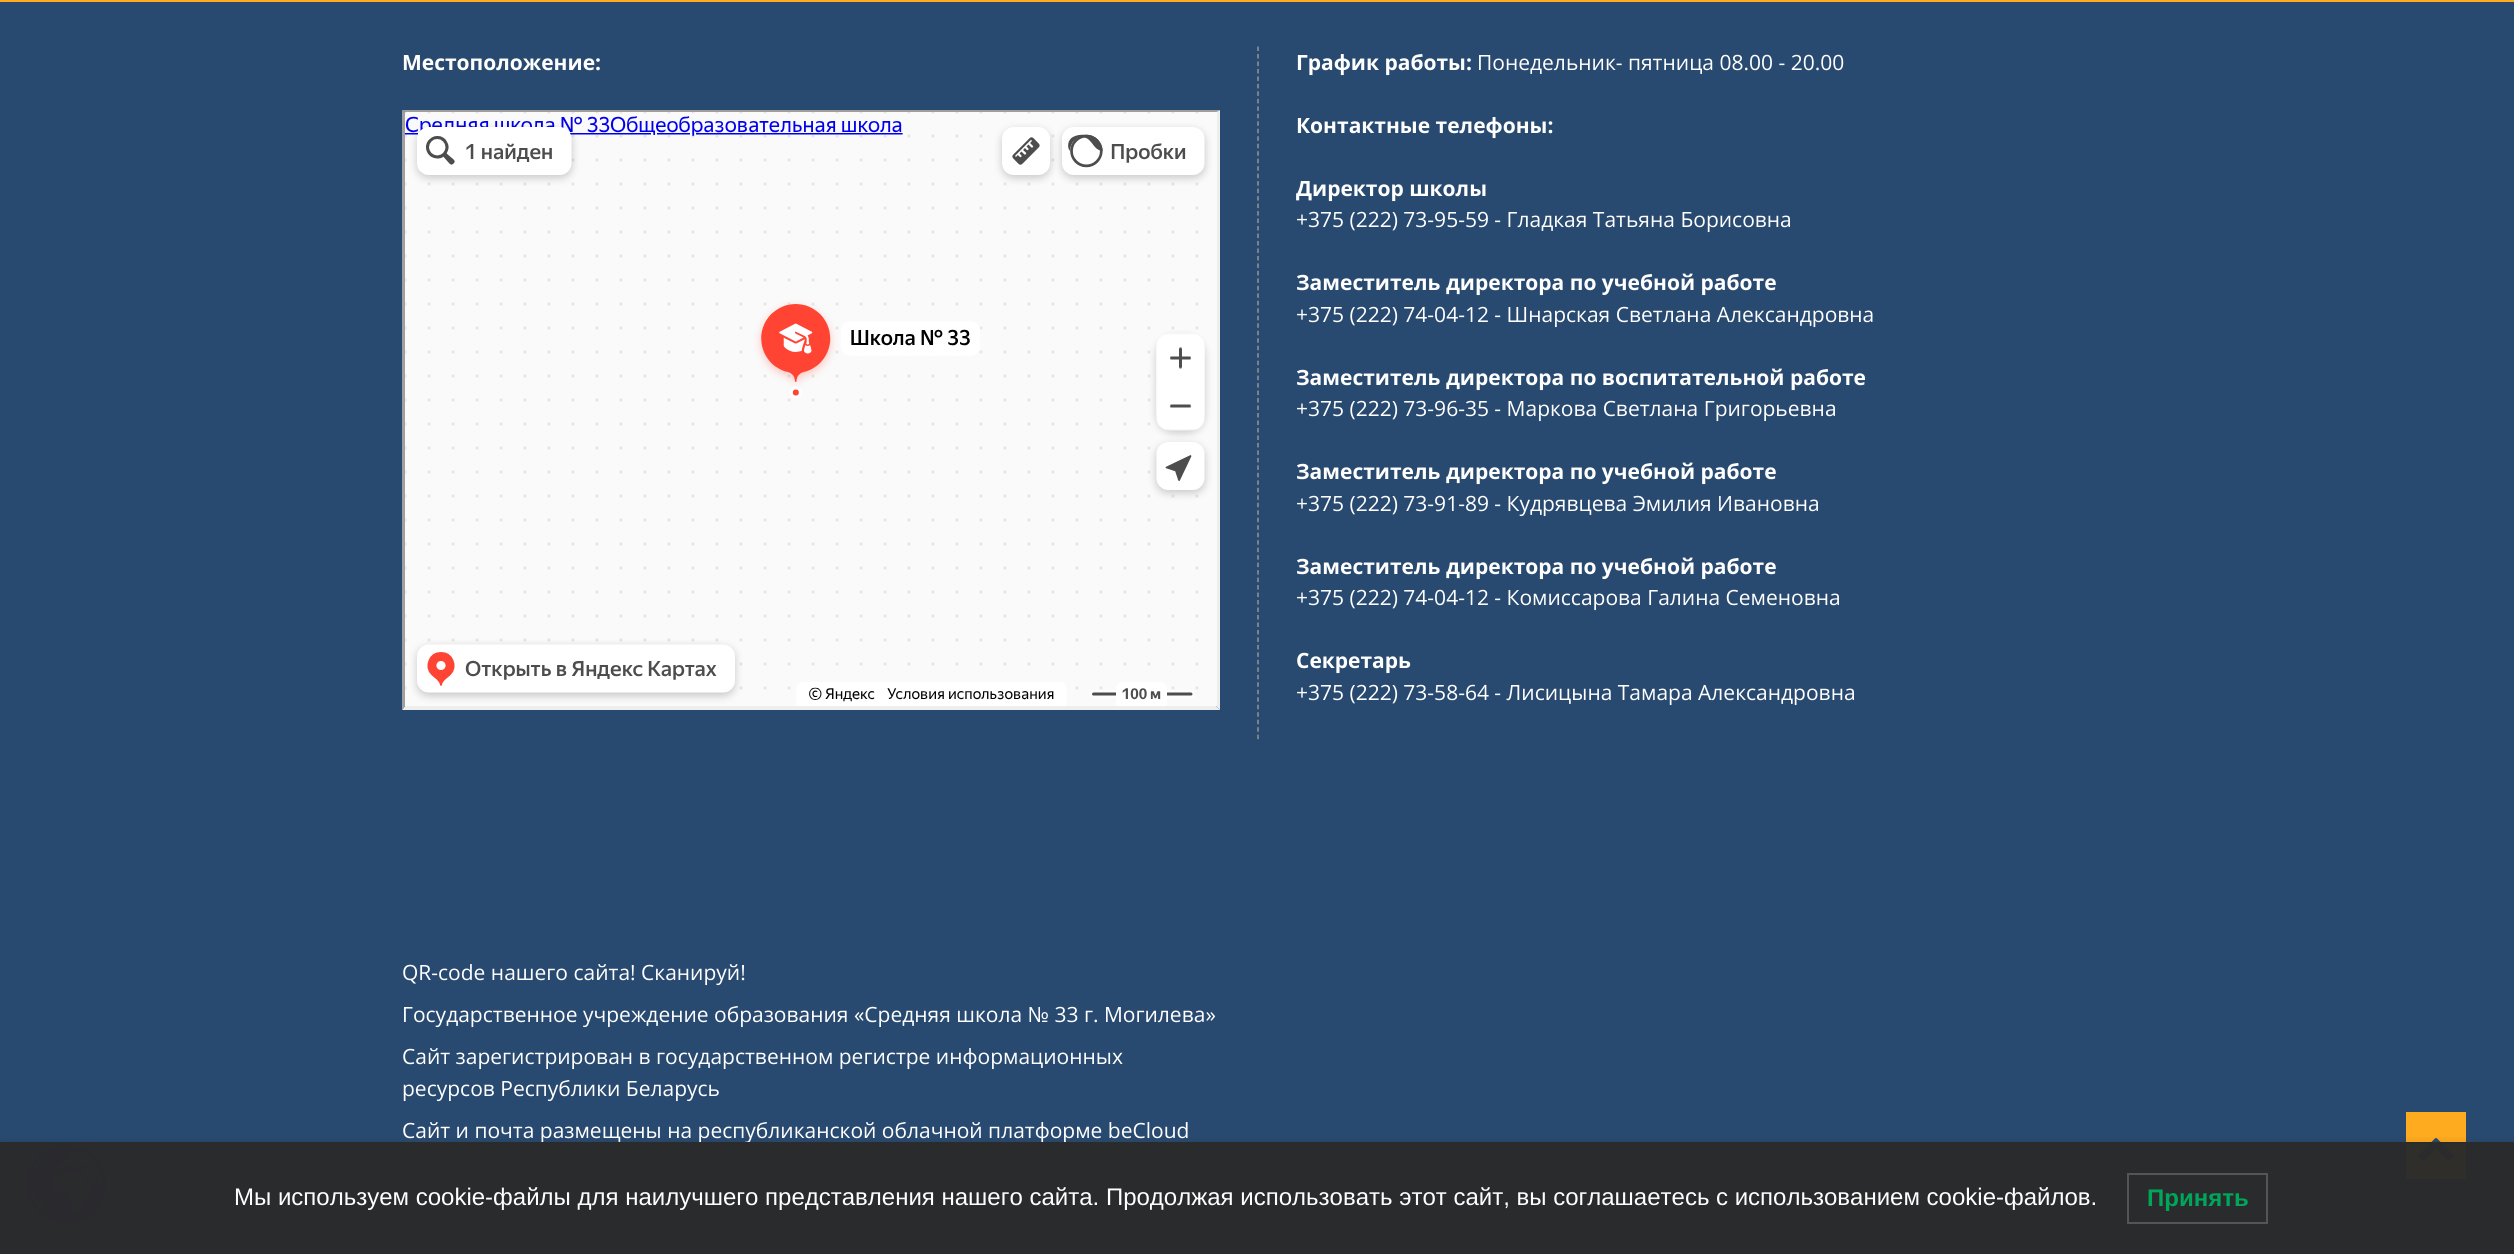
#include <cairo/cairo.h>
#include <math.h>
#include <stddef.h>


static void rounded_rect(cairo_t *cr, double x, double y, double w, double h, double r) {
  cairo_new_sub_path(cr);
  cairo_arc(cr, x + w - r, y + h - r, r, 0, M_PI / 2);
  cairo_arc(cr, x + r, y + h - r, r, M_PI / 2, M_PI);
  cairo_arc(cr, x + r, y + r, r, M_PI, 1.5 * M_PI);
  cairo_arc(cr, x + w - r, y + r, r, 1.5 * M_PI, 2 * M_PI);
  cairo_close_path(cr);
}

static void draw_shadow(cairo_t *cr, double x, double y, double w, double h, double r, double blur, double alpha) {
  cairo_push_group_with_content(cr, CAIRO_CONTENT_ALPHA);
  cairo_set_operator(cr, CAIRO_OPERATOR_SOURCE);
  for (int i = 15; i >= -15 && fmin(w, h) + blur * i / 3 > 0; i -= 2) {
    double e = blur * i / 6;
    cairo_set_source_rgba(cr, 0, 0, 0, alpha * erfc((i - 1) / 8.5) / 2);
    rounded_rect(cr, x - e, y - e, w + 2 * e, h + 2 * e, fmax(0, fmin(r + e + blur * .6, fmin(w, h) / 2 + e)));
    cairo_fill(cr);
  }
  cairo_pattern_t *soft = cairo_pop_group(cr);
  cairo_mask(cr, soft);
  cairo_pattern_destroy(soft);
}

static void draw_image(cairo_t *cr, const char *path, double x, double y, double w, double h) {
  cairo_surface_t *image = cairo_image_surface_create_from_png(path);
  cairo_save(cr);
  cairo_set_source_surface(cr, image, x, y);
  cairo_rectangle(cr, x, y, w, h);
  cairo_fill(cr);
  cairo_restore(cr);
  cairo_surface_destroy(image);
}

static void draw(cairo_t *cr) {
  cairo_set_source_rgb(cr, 41 / 255.0, 74 / 255.0, 112 / 255.0);
  cairo_paint(cr);
  draw_image(cr, "images/1.png", 26, 1144, 81, 81);
  cairo_set_source_rgb(cr, 1, 171 / 255.0, 31 / 255.0);
  cairo_rectangle(cr, 0, 0, 2514, 2);
  cairo_fill(cr);
  cairo_set_source_rgb(cr, 159 / 255.0, 159 / 255.0, 159 / 255.0);
  cairo_new_path(cr);
  cairo_move_to(cr, 402, 110);
  cairo_line_to(cr, 1220, 110);
  cairo_line_to(cr, 1216, 112);
  cairo_line_to(cr, 405, 112);
  cairo_close_path(cr);
  cairo_fill(cr);
  cairo_set_source_rgb(cr, 238 / 255.0, 238 / 255.0, 238 / 255.0);
  cairo_new_path(cr);
  cairo_move_to(cr, 1220, 110);
  cairo_line_to(cr, 1220, 710);
  cairo_line_to(cr, 1216, 706);
  cairo_line_to(cr, 1216, 112);
  cairo_close_path(cr);
  cairo_fill(cr);
  cairo_new_path(cr);
  cairo_move_to(cr, 1220, 710);
  cairo_line_to(cr, 402, 710);
  cairo_line_to(cr, 405, 706);
  cairo_line_to(cr, 1216, 706);
  cairo_close_path(cr);
  cairo_fill(cr);
  cairo_set_source_rgb(cr, 159 / 255.0, 159 / 255.0, 159 / 255.0);
  cairo_new_path(cr);
  cairo_move_to(cr, 402, 710);
  cairo_line_to(cr, 402, 110);
  cairo_line_to(cr, 405, 112);
  cairo_line_to(cr, 405, 706);
  cairo_close_path(cr);
  cairo_fill(cr);
  draw_image(cr, "images/2.png", 405, 112, 812, 594);
  cairo_new_path(cr);
  cairo_move_to(cr, 1258, 46.5);
  cairo_line_to(cr, 1258, 739.5);
  cairo_set_source_rgb(cr, 147 / 255.0, 147 / 255.0, 147 / 255.0);
  cairo_set_line_width(cr, 1.5);
  cairo_set_dash(cr, (double[]){4.5, 2.98}, 2, 0);
  cairo_stroke(cr);
  cairo_set_source_rgb(cr, 1, 171 / 255.0, 31 / 255.0);
  cairo_rectangle(cr, 2406, 1112, 60, 67);
  cairo_fill(cr);
  draw_image(cr, "images/3.png", 2418, 1138, 36, 23);
  cairo_save(cr);
  cairo_rectangle(cr, 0, 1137, 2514, 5);
  cairo_clip(cr);
  cairo_set_source_rgb(cr, 0, 0, 0);
  draw_shadow(cr, 0, 1142, 2514, 112, 0, 6, 0.1);
  cairo_restore(cr);
  cairo_set_source_rgba(cr, 43 / 255.0, 43 / 255.0, 43 / 255.0, 0.97);
  cairo_rectangle(cr, 0, 1144, 2514, 110);
  cairo_fill(cr);
  cairo_rectangle(cr, 2128, 1174, 139, 49);
  cairo_set_source_rgb(cr, 85 / 255.0, 85 / 255.0, 85 / 255.0);
  cairo_set_line_width(cr, 2);
  cairo_set_dash(cr, NULL, 0, 0);
  cairo_stroke(cr);
  cairo_select_font_face(cr, "Open Sans", CAIRO_FONT_SLANT_NORMAL, CAIRO_FONT_WEIGHT_BOLD);
  cairo_set_font_size(cr, 21);
  cairo_set_source_rgb(cr, 1, 1, 1);
  cairo_move_to(cr, 402, 70);
  cairo_show_text(cr, "Местоположение:");
  cairo_select_font_face(cr, "Open Sans", CAIRO_FONT_SLANT_NORMAL, CAIRO_FONT_WEIGHT_NORMAL);
  cairo_move_to(cr, 402, 980);
  cairo_show_text(cr, "QR-code нашего сайта! Сканируй!");
  cairo_move_to(cr, 402, 1022);
  cairo_show_text(cr, "Государственное учреждение образования «Средняя школа № 33 г. Могилева»");
  cairo_move_to(cr, 402, 1064);
  cairo_show_text(cr, "Сайт зарегистрирован в государственном регистре информационных");
  cairo_move_to(cr, 402, 1096);
  cairo_show_text(cr, "ресурсов Республики Беларусь");
  cairo_move_to(cr, 402, 1138);
  cairo_show_text(cr, "Сайт и почта размещены на республиканской облачной платформе beCloud");
  cairo_select_font_face(cr, "Open Sans", CAIRO_FONT_SLANT_NORMAL, CAIRO_FONT_WEIGHT_BOLD);
  cairo_move_to(cr, 1296, 70);
  cairo_show_text(cr, "График работы:");
  cairo_select_font_face(cr, "Open Sans", CAIRO_FONT_SLANT_NORMAL, CAIRO_FONT_WEIGHT_NORMAL);
  cairo_move_to(cr, 1477, 70);
  cairo_show_text(cr, "Понедельник- пятница 08.00 - 20.00");
  cairo_select_font_face(cr, "Open Sans", CAIRO_FONT_SLANT_NORMAL, CAIRO_FONT_WEIGHT_BOLD);
  cairo_move_to(cr, 1296, 133);
  cairo_show_text(cr, "Контактные телефоны:");
  cairo_move_to(cr, 1296, 196);
  cairo_show_text(cr, "Директор школы");
  cairo_select_font_face(cr, "Open Sans", CAIRO_FONT_SLANT_NORMAL, CAIRO_FONT_WEIGHT_NORMAL);
  cairo_move_to(cr, 1296, 227);
  cairo_show_text(cr, "+375 (222) 73-95-59 - Гладкая Татьяна Борисовна");
  cairo_select_font_face(cr, "Open Sans", CAIRO_FONT_SLANT_NORMAL, CAIRO_FONT_WEIGHT_BOLD);
  cairo_move_to(cr, 1296, 290);
  cairo_show_text(cr, "Заместитель директора по учебной работе");
  cairo_select_font_face(cr, "Open Sans", CAIRO_FONT_SLANT_NORMAL, CAIRO_FONT_WEIGHT_NORMAL);
  cairo_move_to(cr, 1296, 322);
  cairo_show_text(cr, "+375 (222) 74-04-12 - Шнарская Светлана Александровна");
  cairo_select_font_face(cr, "Open Sans", CAIRO_FONT_SLANT_NORMAL, CAIRO_FONT_WEIGHT_BOLD);
  cairo_move_to(cr, 1296, 385);
  cairo_show_text(cr, "Заместитель директора по воспитательной работе");
  cairo_select_font_face(cr, "Open Sans", CAIRO_FONT_SLANT_NORMAL, CAIRO_FONT_WEIGHT_NORMAL);
  cairo_move_to(cr, 1296, 416);
  cairo_show_text(cr, "+375 (222) 73-96-35 - Маркова Светлана Григорьевна");
  cairo_select_font_face(cr, "Open Sans", CAIRO_FONT_SLANT_NORMAL, CAIRO_FONT_WEIGHT_BOLD);
  cairo_move_to(cr, 1296, 479);
  cairo_show_text(cr, "Заместитель директора по учебной работе");
  cairo_select_font_face(cr, "Open Sans", CAIRO_FONT_SLANT_NORMAL, CAIRO_FONT_WEIGHT_NORMAL);
  cairo_move_to(cr, 1296, 511);
  cairo_show_text(cr, "+375 (222) 73-91-89 - Кудрявцева Эмилия Ивановна");
  cairo_select_font_face(cr, "Open Sans", CAIRO_FONT_SLANT_NORMAL, CAIRO_FONT_WEIGHT_BOLD);
  cairo_move_to(cr, 1296, 574);
  cairo_show_text(cr, "Заместитель директора по учебной работе");
  cairo_select_font_face(cr, "Open Sans", CAIRO_FONT_SLANT_NORMAL, CAIRO_FONT_WEIGHT_NORMAL);
  cairo_move_to(cr, 1296, 605);
  cairo_show_text(cr, "+375 (222) 74-04-12 - Комиссарова Галина Семеновна");
  cairo_select_font_face(cr, "Open Sans", CAIRO_FONT_SLANT_NORMAL, CAIRO_FONT_WEIGHT_BOLD);
  cairo_move_to(cr, 1296, 668);
  cairo_show_text(cr, "Секретарь");
  cairo_select_font_face(cr, "Open Sans", CAIRO_FONT_SLANT_NORMAL, CAIRO_FONT_WEIGHT_NORMAL);
  cairo_move_to(cr, 1296, 700);
  cairo_show_text(cr, "+375 (222) 73-58-64 - Лисицына Тамара Александровна");
  cairo_set_source_rgb(cr, 43 / 255.0, 43 / 255.0, 43 / 255.0);
  cairo_rectangle(cr, 0, 1142, 2514, 2);
  cairo_fill(cr);
  cairo_select_font_face(cr, "Liberation Sans", CAIRO_FONT_SLANT_NORMAL, CAIRO_FONT_WEIGHT_NORMAL);
  cairo_set_font_size(cr, 24);
  cairo_set_source_rgb(cr, 1, 1, 1);
  cairo_move_to(cr, 234, 1205);
  cairo_show_text(cr, "Мы используем cookie-файлы для наилучшего представления нашего сайта. Продолжая использовать этот сайт, вы соглашаетесь с использованием cookie-файлов.");
  cairo_select_font_face(cr, "Liberation Sans", CAIRO_FONT_SLANT_NORMAL, CAIRO_FONT_WEIGHT_BOLD);
  cairo_set_source_rgb(cr, 0, 166 / 255.0, 90 / 255.0);
  cairo_move_to(cr, 2147, 1206);
  cairo_show_text(cr, "Принять");
}

int main(void) {
  cairo_surface_t *surface = cairo_image_surface_create(CAIRO_FORMAT_RGB24, 2514, 1254);
  cairo_t *cr = cairo_create(surface);
  cairo_font_options_t *options = cairo_font_options_create();
  cairo_font_options_set_hint_metrics(options, CAIRO_HINT_METRICS_OFF);
  cairo_font_options_set_hint_style(options, CAIRO_HINT_STYLE_NONE);
  cairo_set_font_options(cr, options);
  cairo_set_miter_limit(cr, 4);
  draw(cr);
  cairo_surface_write_to_png(surface, "out.png");
  cairo_font_options_destroy(options);
  cairo_destroy(cr);
  cairo_surface_destroy(surface);
  return 0;
}
